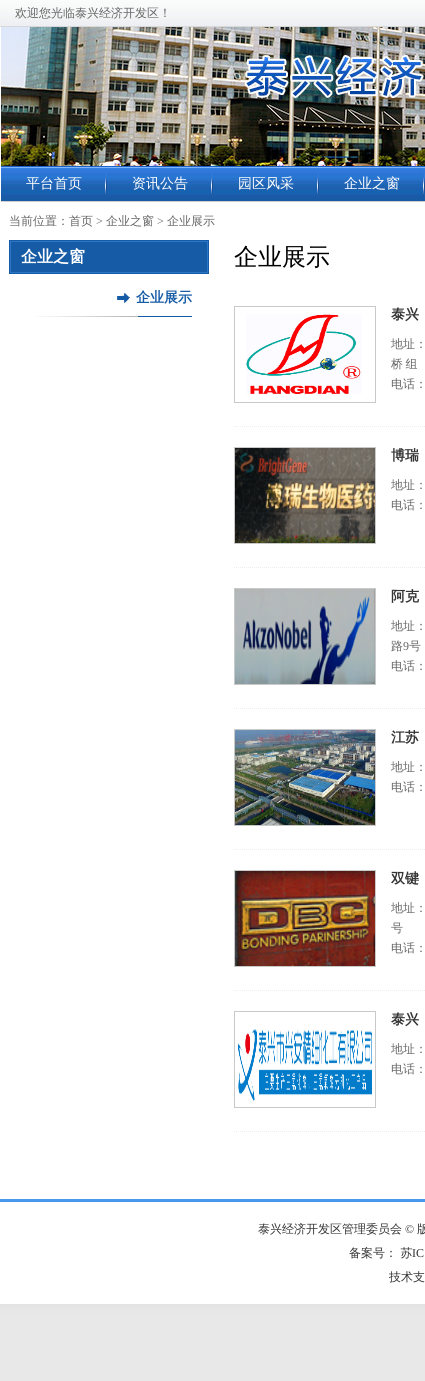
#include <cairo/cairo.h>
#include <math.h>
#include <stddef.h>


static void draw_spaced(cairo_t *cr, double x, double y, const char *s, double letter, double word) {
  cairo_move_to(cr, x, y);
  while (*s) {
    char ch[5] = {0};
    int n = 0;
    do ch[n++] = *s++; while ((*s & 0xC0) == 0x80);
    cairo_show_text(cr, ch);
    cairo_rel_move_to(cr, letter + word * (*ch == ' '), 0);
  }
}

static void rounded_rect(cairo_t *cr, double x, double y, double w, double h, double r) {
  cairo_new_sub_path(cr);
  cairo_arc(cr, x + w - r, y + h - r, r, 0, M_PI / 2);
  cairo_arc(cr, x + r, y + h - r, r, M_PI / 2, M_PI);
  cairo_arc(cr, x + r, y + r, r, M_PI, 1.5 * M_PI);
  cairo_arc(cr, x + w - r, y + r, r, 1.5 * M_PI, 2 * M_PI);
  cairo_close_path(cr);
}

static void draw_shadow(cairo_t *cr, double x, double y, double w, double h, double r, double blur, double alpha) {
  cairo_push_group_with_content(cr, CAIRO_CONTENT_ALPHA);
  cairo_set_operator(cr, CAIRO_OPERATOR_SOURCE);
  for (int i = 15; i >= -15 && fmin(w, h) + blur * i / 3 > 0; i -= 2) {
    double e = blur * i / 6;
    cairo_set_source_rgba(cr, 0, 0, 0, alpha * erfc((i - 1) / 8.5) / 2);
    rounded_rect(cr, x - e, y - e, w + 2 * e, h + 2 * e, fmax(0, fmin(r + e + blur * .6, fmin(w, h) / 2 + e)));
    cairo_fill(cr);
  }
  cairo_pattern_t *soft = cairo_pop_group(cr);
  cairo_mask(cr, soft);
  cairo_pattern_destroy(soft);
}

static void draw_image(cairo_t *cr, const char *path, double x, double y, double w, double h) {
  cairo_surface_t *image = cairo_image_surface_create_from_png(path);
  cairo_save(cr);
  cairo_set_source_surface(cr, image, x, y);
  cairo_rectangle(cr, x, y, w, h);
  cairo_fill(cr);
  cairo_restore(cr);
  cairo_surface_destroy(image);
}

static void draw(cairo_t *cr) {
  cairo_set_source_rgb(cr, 232 / 255.0, 232 / 255.0, 232 / 255.0);
  cairo_paint(cr);
  cairo_set_source_rgb(cr, 221 / 255.0, 221 / 255.0, 221 / 255.0);
  draw_shadow(cr, 0, 0, 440, 1304, 0, 5, 1);
  cairo_set_source_rgb(cr, 1, 1, 1);
  cairo_rectangle(cr, 0, 27, 425, 1277);
  cairo_fill(cr);
  draw_image(cr, "images/1.png", 0, 0, 425, 27);
  draw_image(cr, "images/2.png", 1, 27, 424, 139);
  draw_image(cr, "images/3.png", 1, 166, 424, 36);
  draw_image(cr, "images/4.png", 105, 173, 2, 23);
  draw_image(cr, "images/4.png", 211, 173, 2, 23);
  draw_image(cr, "images/4.png", 317, 173, 2, 23);
  draw_image(cr, "images/4.png", 423, 173, 2, 23);
  cairo_rectangle(cr, 9.5, 240.5, 199, 33);
  cairo_set_source_rgb(cr, 22 / 255.0, 91 / 255.0, 166 / 255.0);
  cairo_set_line_width(cr, 1);
  cairo_stroke(cr);
  cairo_rectangle(cr, 10.5, 241.5, 197, 31);
  cairo_fill_preserve(cr);
  cairo_set_source_rgb(cr, 44 / 255.0, 118 / 255.0, 199 / 255.0);
  cairo_stroke(cr);
  draw_image(cr, "images/5.png", 36, 316, 156, 1);
  draw_image(cr, "images/6.png", 117, 293, 13, 10);
  cairo_new_path(cr);
  cairo_move_to(cr, 234, 426.5);
  cairo_line_to(cr, 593, 426.5);
  cairo_set_source_rgb(cr, 238 / 255.0, 238 / 255.0, 238 / 255.0);
  cairo_set_dash(cr, (double[]){1, 1}, 2, 0);
  cairo_stroke(cr);
  cairo_rectangle(cr, 234.5, 306.5, 141, 96);
  cairo_set_source_rgb(cr, 201 / 255.0, 201 / 255.0, 201 / 255.0);
  cairo_set_dash(cr, NULL, 0, 0);
  cairo_stroke(cr);
  draw_image(cr, "images/7.png", 246, 314, 116, 80);
  cairo_new_path(cr);
  cairo_move_to(cr, 234, 567.5);
  cairo_line_to(cr, 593, 567.5);
  cairo_set_source_rgb(cr, 238 / 255.0, 238 / 255.0, 238 / 255.0);
  cairo_set_dash(cr, (double[]){1, 1}, 2, 0);
  cairo_stroke(cr);
  cairo_rectangle(cr, 234.5, 447.5, 141, 96);
  cairo_set_source_rgb(cr, 201 / 255.0, 201 / 255.0, 201 / 255.0);
  cairo_set_dash(cr, NULL, 0, 0);
  cairo_stroke(cr);
  draw_image(cr, "images/8.png", 235, 448, 140, 95);
  cairo_new_path(cr);
  cairo_move_to(cr, 234, 708.5);
  cairo_line_to(cr, 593, 708.5);
  cairo_set_source_rgb(cr, 238 / 255.0, 238 / 255.0, 238 / 255.0);
  cairo_set_dash(cr, (double[]){1, 1}, 2, 0);
  cairo_stroke(cr);
  cairo_rectangle(cr, 234.5, 588.5, 141, 96);
  cairo_set_source_rgb(cr, 201 / 255.0, 201 / 255.0, 201 / 255.0);
  cairo_set_dash(cr, NULL, 0, 0);
  cairo_stroke(cr);
  draw_image(cr, "images/9.png", 235, 589, 140, 95);
  cairo_new_path(cr);
  cairo_move_to(cr, 234, 849.5);
  cairo_line_to(cr, 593, 849.5);
  cairo_set_source_rgb(cr, 238 / 255.0, 238 / 255.0, 238 / 255.0);
  cairo_set_dash(cr, (double[]){1, 1}, 2, 0);
  cairo_stroke(cr);
  cairo_rectangle(cr, 234.5, 729.5, 141, 96);
  cairo_set_source_rgb(cr, 201 / 255.0, 201 / 255.0, 201 / 255.0);
  cairo_set_dash(cr, NULL, 0, 0);
  cairo_stroke(cr);
  draw_image(cr, "images/10.png", 235, 730, 140, 95);
  cairo_new_path(cr);
  cairo_move_to(cr, 234, 990.5);
  cairo_line_to(cr, 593, 990.5);
  cairo_set_source_rgb(cr, 238 / 255.0, 238 / 255.0, 238 / 255.0);
  cairo_set_dash(cr, (double[]){1, 1}, 2, 0);
  cairo_stroke(cr);
  cairo_rectangle(cr, 234.5, 870.5, 141, 96);
  cairo_set_source_rgb(cr, 201 / 255.0, 201 / 255.0, 201 / 255.0);
  cairo_set_dash(cr, NULL, 0, 0);
  cairo_stroke(cr);
  draw_image(cr, "images/11.png", 235, 871, 140, 95);
  cairo_new_path(cr);
  cairo_move_to(cr, 234, 1131.5);
  cairo_line_to(cr, 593, 1131.5);
  cairo_set_source_rgb(cr, 238 / 255.0, 238 / 255.0, 238 / 255.0);
  cairo_set_dash(cr, (double[]){1, 1}, 2, 0);
  cairo_stroke(cr);
  cairo_rectangle(cr, 234.5, 1011.5, 141, 96);
  cairo_set_source_rgb(cr, 201 / 255.0, 201 / 255.0, 201 / 255.0);
  cairo_set_dash(cr, NULL, 0, 0);
  cairo_stroke(cr);
  draw_image(cr, "images/12.png", 238, 1029, 134, 73);
  cairo_set_source_rgb(cr, 72 / 255.0, 152 / 255.0, 239 / 255.0);
  cairo_rectangle(cr, 0, 1199, 425, 3);
  cairo_fill(cr);
  cairo_select_font_face(cr, "WenQuanYi Zen Hei Medium", CAIRO_FONT_SLANT_NORMAL, CAIRO_FONT_WEIGHT_NORMAL);
  cairo_set_font_size(cr, 12);
  cairo_set_source_rgb(cr, 102 / 255.0, 102 / 255.0, 102 / 255.0);
  cairo_move_to(cr, 15, 17);
  cairo_show_text(cr, "欢迎您光临泰兴经济开发区！");
  cairo_set_font_size(cr, 14);
  cairo_set_source_rgb(cr, 1, 1, 1);
  cairo_move_to(cr, 26, 188);
  cairo_show_text(cr, "平台首页");
  cairo_move_to(cr, 132, 188);
  cairo_show_text(cr, "资讯公告");
  cairo_move_to(cr, 238, 188);
  cairo_show_text(cr, "园区风采");
  cairo_move_to(cr, 344, 188);
  cairo_show_text(cr, "企业之窗");
  cairo_set_font_size(cr, 12);
  cairo_set_source_rgb(cr, 102 / 255.0, 102 / 255.0, 102 / 255.0);
  cairo_move_to(cr, 9, 225);
  cairo_show_text(cr, "当前位置：首页");
  cairo_select_font_face(cr, "Liberation Serif", CAIRO_FONT_SLANT_NORMAL, CAIRO_FONT_WEIGHT_NORMAL);
  cairo_move_to(cr, 96, 225);
  cairo_show_text(cr, ">");
  cairo_select_font_face(cr, "WenQuanYi Zen Hei Medium", CAIRO_FONT_SLANT_NORMAL, CAIRO_FONT_WEIGHT_NORMAL);
  cairo_move_to(cr, 106, 225);
  cairo_show_text(cr, "企业之窗");
  cairo_select_font_face(cr, "Liberation Serif", CAIRO_FONT_SLANT_NORMAL, CAIRO_FONT_WEIGHT_NORMAL);
  cairo_move_to(cr, 157, 225);
  cairo_show_text(cr, ">");
  cairo_select_font_face(cr, "WenQuanYi Zen Hei Medium", CAIRO_FONT_SLANT_NORMAL, CAIRO_FONT_WEIGHT_NORMAL);
  cairo_move_to(cr, 167, 225);
  cairo_show_text(cr, "企业展示");
  cairo_select_font_face(cr, "WenQuanYi Zen Hei", CAIRO_FONT_SLANT_NORMAL, CAIRO_FONT_WEIGHT_BOLD);
  cairo_set_font_size(cr, 16);
  cairo_set_source_rgb(cr, 1, 1, 1);
  cairo_move_to(cr, 21, 262);
  cairo_show_text(cr, "企业之窗");
  cairo_set_font_size(cr, 14);
  cairo_set_source_rgb(cr, 22 / 255.0, 91 / 255.0, 166 / 255.0);
  cairo_move_to(cr, 136, 302);
  cairo_show_text(cr, "企业展示");
  cairo_select_font_face(cr, "WenQuanYi Zen Hei Medium", CAIRO_FONT_SLANT_NORMAL, CAIRO_FONT_WEIGHT_NORMAL);
  cairo_set_font_size(cr, 24);
  cairo_set_source_rgb(cr, 0, 0, 0);
  cairo_move_to(cr, 234, 265);
  cairo_show_text(cr, "企业展示");
  cairo_select_font_face(cr, "WenQuanYi Zen Hei", CAIRO_FONT_SLANT_NORMAL, CAIRO_FONT_WEIGHT_BOLD);
  cairo_set_font_size(cr, 14);
  cairo_set_source_rgb(cr, 52 / 255.0, 52 / 255.0, 52 / 255.0);
  cairo_move_to(cr, 391, 319);
  cairo_show_text(cr, "泰兴");
  cairo_select_font_face(cr, "WenQuanYi Zen Hei Medium", CAIRO_FONT_SLANT_NORMAL, CAIRO_FONT_WEIGHT_NORMAL);
  cairo_set_font_size(cr, 12);
  cairo_set_source_rgb(cr, 102 / 255.0, 102 / 255.0, 102 / 255.0);
  cairo_move_to(cr, 391, 348);
  cairo_show_text(cr, "地址：");
  draw_spaced(cr, 391, 368, "桥 组", 0, -1);
  cairo_move_to(cr, 391, 388);
  cairo_show_text(cr, "电话：");
  cairo_select_font_face(cr, "WenQuanYi Zen Hei", CAIRO_FONT_SLANT_NORMAL, CAIRO_FONT_WEIGHT_BOLD);
  cairo_set_font_size(cr, 14);
  cairo_set_source_rgb(cr, 52 / 255.0, 52 / 255.0, 52 / 255.0);
  cairo_move_to(cr, 391, 460);
  cairo_show_text(cr, "博瑞");
  cairo_select_font_face(cr, "WenQuanYi Zen Hei Medium", CAIRO_FONT_SLANT_NORMAL, CAIRO_FONT_WEIGHT_NORMAL);
  cairo_set_font_size(cr, 12);
  cairo_set_source_rgb(cr, 102 / 255.0, 102 / 255.0, 102 / 255.0);
  cairo_move_to(cr, 391, 489);
  cairo_show_text(cr, "地址：");
  cairo_move_to(cr, 391, 509);
  cairo_show_text(cr, "电话：");
  cairo_select_font_face(cr, "WenQuanYi Zen Hei", CAIRO_FONT_SLANT_NORMAL, CAIRO_FONT_WEIGHT_BOLD);
  cairo_set_font_size(cr, 14);
  cairo_set_source_rgb(cr, 52 / 255.0, 52 / 255.0, 52 / 255.0);
  cairo_move_to(cr, 391, 601);
  cairo_show_text(cr, "阿克");
  cairo_select_font_face(cr, "WenQuanYi Zen Hei Medium", CAIRO_FONT_SLANT_NORMAL, CAIRO_FONT_WEIGHT_NORMAL);
  cairo_set_font_size(cr, 12);
  cairo_set_source_rgb(cr, 102 / 255.0, 102 / 255.0, 102 / 255.0);
  cairo_move_to(cr, 391, 630);
  cairo_show_text(cr, "地址：");
  cairo_move_to(cr, 391, 650);
  cairo_show_text(cr, "路");
  cairo_select_font_face(cr, "Liberation Serif", CAIRO_FONT_SLANT_NORMAL, CAIRO_FONT_WEIGHT_NORMAL);
  cairo_move_to(cr, 403, 650);
  cairo_show_text(cr, "9");
  cairo_select_font_face(cr, "WenQuanYi Zen Hei Medium", CAIRO_FONT_SLANT_NORMAL, CAIRO_FONT_WEIGHT_NORMAL);
  cairo_move_to(cr, 409, 650);
  cairo_show_text(cr, "号");
  cairo_move_to(cr, 391, 670);
  cairo_show_text(cr, "电话：");
  cairo_select_font_face(cr, "WenQuanYi Zen Hei", CAIRO_FONT_SLANT_NORMAL, CAIRO_FONT_WEIGHT_BOLD);
  cairo_set_font_size(cr, 14);
  cairo_set_source_rgb(cr, 52 / 255.0, 52 / 255.0, 52 / 255.0);
  cairo_move_to(cr, 391, 742);
  cairo_show_text(cr, "江苏");
  cairo_select_font_face(cr, "WenQuanYi Zen Hei Medium", CAIRO_FONT_SLANT_NORMAL, CAIRO_FONT_WEIGHT_NORMAL);
  cairo_set_font_size(cr, 12);
  cairo_set_source_rgb(cr, 102 / 255.0, 102 / 255.0, 102 / 255.0);
  cairo_move_to(cr, 391, 771);
  cairo_show_text(cr, "地址：");
  cairo_move_to(cr, 391, 791);
  cairo_show_text(cr, "电话：");
  cairo_select_font_face(cr, "WenQuanYi Zen Hei", CAIRO_FONT_SLANT_NORMAL, CAIRO_FONT_WEIGHT_BOLD);
  cairo_set_font_size(cr, 14);
  cairo_set_source_rgb(cr, 52 / 255.0, 52 / 255.0, 52 / 255.0);
  cairo_move_to(cr, 391, 883);
  cairo_show_text(cr, "双键");
  cairo_select_font_face(cr, "WenQuanYi Zen Hei Medium", CAIRO_FONT_SLANT_NORMAL, CAIRO_FONT_WEIGHT_NORMAL);
  cairo_set_font_size(cr, 12);
  cairo_set_source_rgb(cr, 102 / 255.0, 102 / 255.0, 102 / 255.0);
  cairo_move_to(cr, 391, 912);
  cairo_show_text(cr, "地址：");
  cairo_move_to(cr, 391, 932);
  cairo_show_text(cr, "号");
  cairo_move_to(cr, 391, 952);
  cairo_show_text(cr, "电话：");
  cairo_select_font_face(cr, "WenQuanYi Zen Hei", CAIRO_FONT_SLANT_NORMAL, CAIRO_FONT_WEIGHT_BOLD);
  cairo_set_font_size(cr, 14);
  cairo_set_source_rgb(cr, 52 / 255.0, 52 / 255.0, 52 / 255.0);
  cairo_move_to(cr, 391, 1024);
  cairo_show_text(cr, "泰兴");
  cairo_select_font_face(cr, "WenQuanYi Zen Hei Medium", CAIRO_FONT_SLANT_NORMAL, CAIRO_FONT_WEIGHT_NORMAL);
  cairo_set_font_size(cr, 12);
  cairo_set_source_rgb(cr, 102 / 255.0, 102 / 255.0, 102 / 255.0);
  cairo_move_to(cr, 391, 1053);
  cairo_show_text(cr, "地址：");
  cairo_move_to(cr, 391, 1073);
  cairo_show_text(cr, "电话：");
  cairo_set_source_rgb(cr, 52 / 255.0, 52 / 255.0, 52 / 255.0);
  cairo_move_to(cr, 258, 1233);
  cairo_show_text(cr, "泰兴经济开发区管理委员会");
  cairo_select_font_face(cr, "Liberation Serif", CAIRO_FONT_SLANT_NORMAL, CAIRO_FONT_WEIGHT_NORMAL);
  cairo_move_to(cr, 405, 1233);
  cairo_show_text(cr, "©");
  cairo_select_font_face(cr, "WenQuanYi Zen Hei Medium", CAIRO_FONT_SLANT_NORMAL, CAIRO_FONT_WEIGHT_NORMAL);
  cairo_move_to(cr, 417, 1233);
  cairo_show_text(cr, "版");
  cairo_move_to(cr, 349, 1257);
  cairo_show_text(cr, "备案号： 苏");
  cairo_select_font_face(cr, "Liberation Serif", CAIRO_FONT_SLANT_NORMAL, CAIRO_FONT_WEIGHT_NORMAL);
  cairo_move_to(cr, 412, 1257);
  cairo_show_text(cr, "IC");
  cairo_select_font_face(cr, "WenQuanYi Zen Hei Medium", CAIRO_FONT_SLANT_NORMAL, CAIRO_FONT_WEIGHT_NORMAL);
  cairo_move_to(cr, 389, 1281);
  cairo_show_text(cr, "技术支");
}

int main(void) {
  cairo_surface_t *surface = cairo_image_surface_create(CAIRO_FORMAT_RGB24, 425, 1381);
  cairo_t *cr = cairo_create(surface);
  cairo_font_options_t *options = cairo_font_options_create();
  cairo_font_options_set_hint_metrics(options, CAIRO_HINT_METRICS_OFF);
  cairo_font_options_set_hint_style(options, CAIRO_HINT_STYLE_NONE);
  cairo_set_font_options(cr, options);
  cairo_set_miter_limit(cr, 4);
  draw(cr);
  cairo_surface_write_to_png(surface, "out.png");
  cairo_font_options_destroy(options);
  cairo_destroy(cr);
  cairo_surface_destroy(surface);
  return 0;
}
